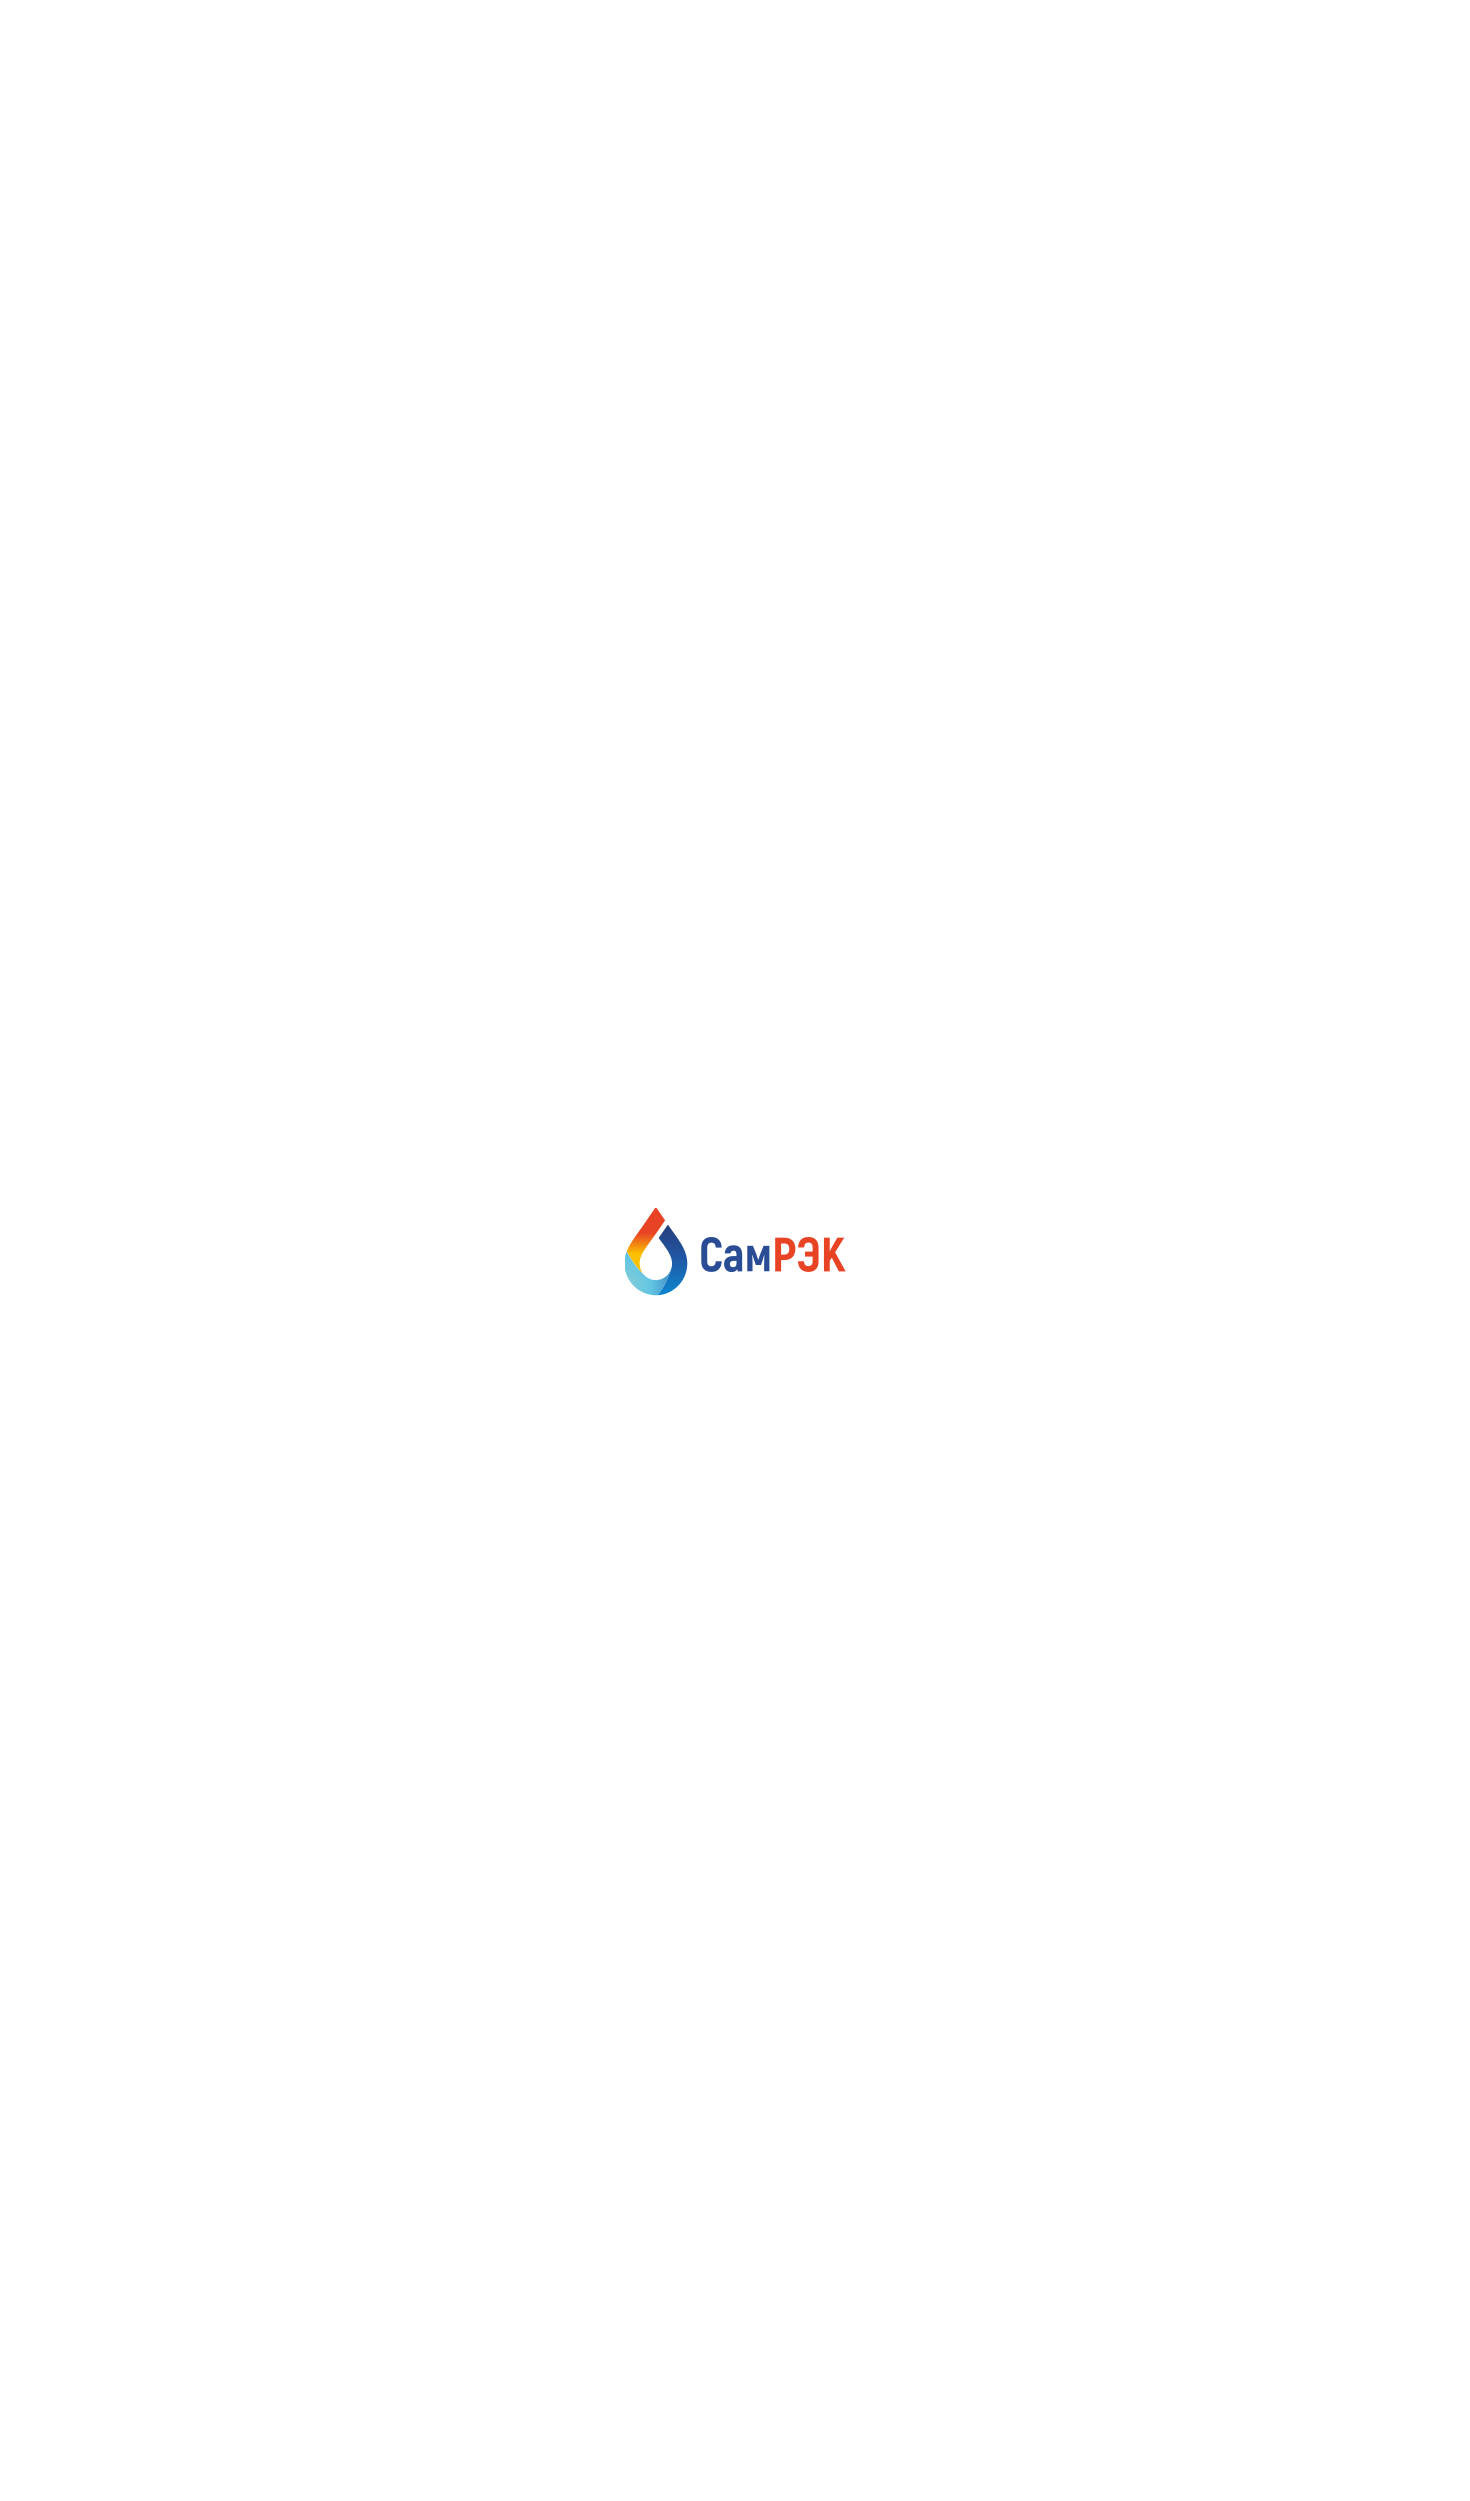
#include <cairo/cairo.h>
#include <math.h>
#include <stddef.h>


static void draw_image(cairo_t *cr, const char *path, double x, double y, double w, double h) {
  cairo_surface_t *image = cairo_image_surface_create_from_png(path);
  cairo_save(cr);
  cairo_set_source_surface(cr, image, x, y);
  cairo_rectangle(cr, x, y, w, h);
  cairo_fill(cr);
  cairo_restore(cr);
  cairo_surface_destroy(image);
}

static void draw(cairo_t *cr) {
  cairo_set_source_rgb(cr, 1, 1, 1);
  cairo_paint(cr);
  draw_image(cr, "images/1.png", 625, 1208, 221, 88);
}

int main(void) {
  cairo_surface_t *surface = cairo_image_surface_create(CAIRO_FORMAT_RGB24, 1470, 2501);
  cairo_t *cr = cairo_create(surface);
  cairo_font_options_t *options = cairo_font_options_create();
  cairo_font_options_set_hint_metrics(options, CAIRO_HINT_METRICS_OFF);
  cairo_font_options_set_hint_style(options, CAIRO_HINT_STYLE_NONE);
  cairo_set_font_options(cr, options);
  cairo_set_miter_limit(cr, 4);
  draw(cr);
  cairo_surface_write_to_png(surface, "out.png");
  cairo_font_options_destroy(options);
  cairo_destroy(cr);
  cairo_surface_destroy(surface);
  return 0;
}
